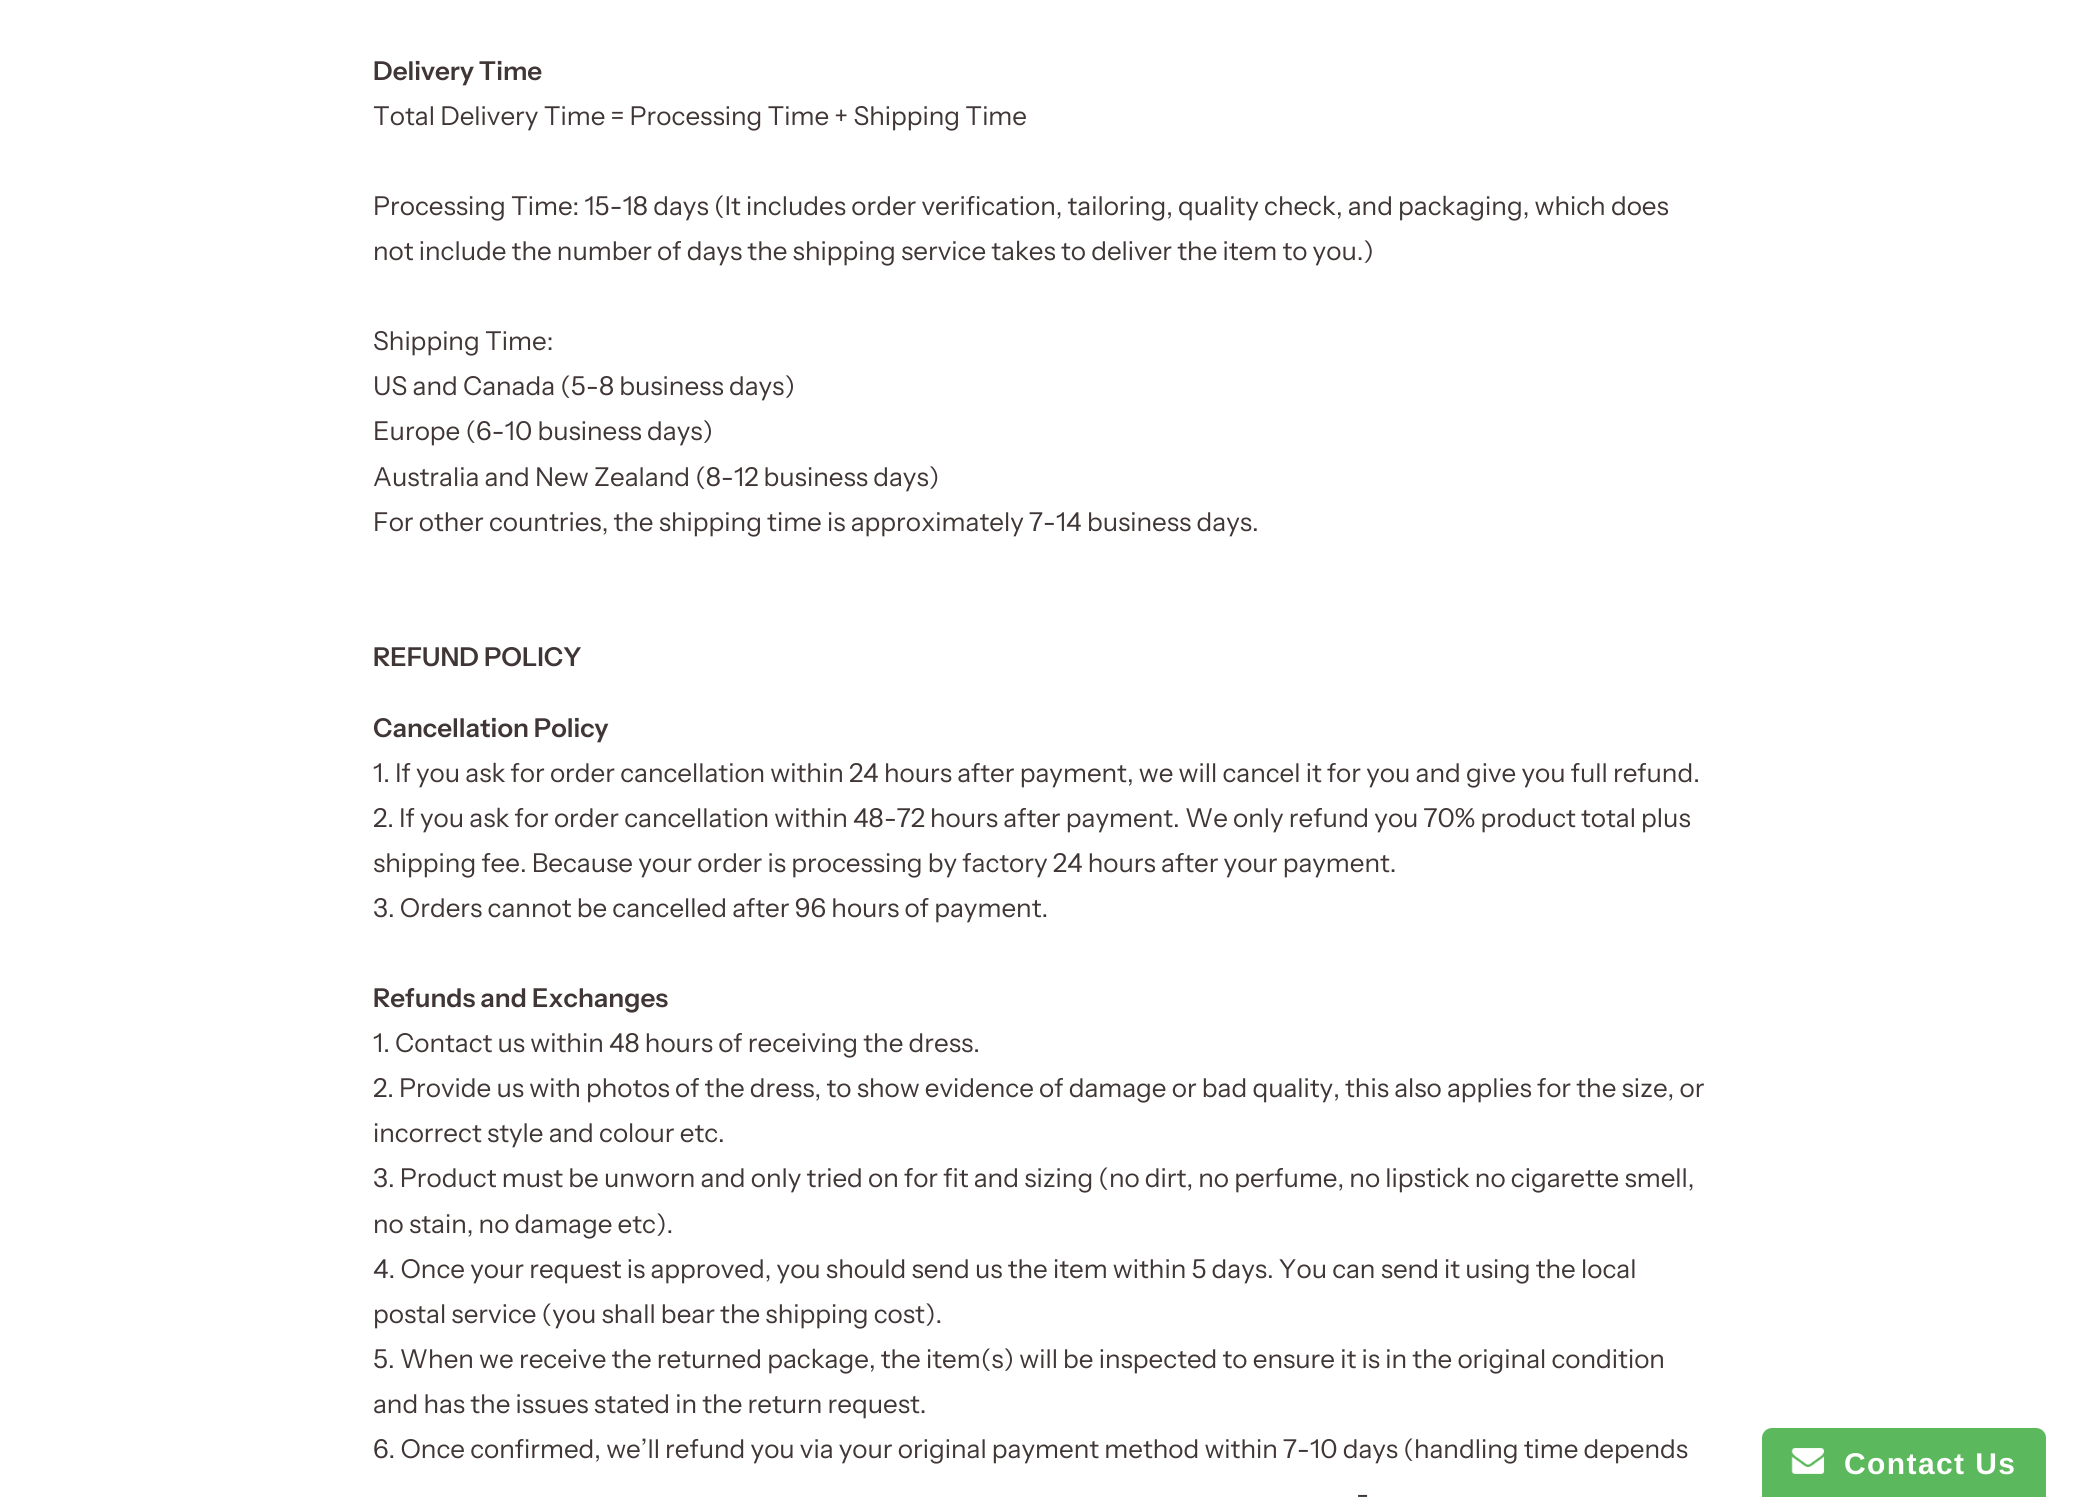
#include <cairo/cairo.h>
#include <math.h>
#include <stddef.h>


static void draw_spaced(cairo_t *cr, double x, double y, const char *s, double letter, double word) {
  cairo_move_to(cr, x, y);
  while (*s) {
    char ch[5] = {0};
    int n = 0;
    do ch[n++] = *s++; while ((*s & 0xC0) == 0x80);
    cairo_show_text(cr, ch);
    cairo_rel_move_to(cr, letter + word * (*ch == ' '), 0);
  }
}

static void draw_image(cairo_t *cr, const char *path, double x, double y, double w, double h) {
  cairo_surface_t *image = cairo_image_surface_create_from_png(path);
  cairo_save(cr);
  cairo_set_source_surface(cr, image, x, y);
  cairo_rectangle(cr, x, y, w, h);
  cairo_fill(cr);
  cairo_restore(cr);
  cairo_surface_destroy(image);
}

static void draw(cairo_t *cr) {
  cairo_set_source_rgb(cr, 1, 1, 1);
  cairo_paint(cr);
  cairo_set_source_rgb(cr, 92 / 255.0, 184 / 255.0, 92 / 255.0);
  cairo_new_path(cr);
  cairo_move_to(cr, 1772, 1428);
  cairo_line_to(cr, 2036, 1428);
  cairo_curve_to(cr, 2041.5, 1428, 2046, 1432.5, 2046, 1438);
  cairo_line_to(cr, 2046, 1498);
  cairo_line_to(cr, 1762, 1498);
  cairo_line_to(cr, 1762, 1438);
  cairo_curve_to(cr, 1762, 1432.5, 1766.5, 1428, 1772, 1428);
  cairo_close_path(cr);
  cairo_fill(cr);
  draw_image(cr, "images/1.png", 1791, 1448, 34, 26);
  cairo_select_font_face(cr, "Instrument Sans SemiBold", CAIRO_FONT_SLANT_NORMAL, CAIRO_FONT_WEIGHT_NORMAL);
  cairo_set_font_size(cr, 26);
  cairo_set_source_rgb(cr, 64 / 255.0, 54 / 255.0, 54 / 255.0);
  cairo_move_to(cr, 373, 80);
  cairo_show_text(cr, "Delivery Time");
  cairo_select_font_face(cr, "Instrument Sans", CAIRO_FONT_SLANT_NORMAL, CAIRO_FONT_WEIGHT_NORMAL);
  cairo_move_to(cr, 373, 125);
  cairo_show_text(cr, "Total Delivery Time = Processing Time + Shipping Time");
  cairo_move_to(cr, 373, 215);
  cairo_show_text(cr, "Processing Time: 15-18 days (It includes order verification, tailoring, quality check, and packaging, which does");
  cairo_move_to(cr, 373, 260);
  cairo_show_text(cr, "not include the number of days the shipping service takes to deliver the item to you.)");
  cairo_move_to(cr, 373, 350);
  cairo_show_text(cr, "Shipping Time:");
  cairo_move_to(cr, 373, 395);
  cairo_show_text(cr, "US and Canada (5-8 business days)");
  cairo_move_to(cr, 373, 440);
  cairo_show_text(cr, "Europe (6-10 business days)");
  cairo_move_to(cr, 373, 486);
  cairo_show_text(cr, "Australia and New Zealand (8-12 business days)");
  cairo_move_to(cr, 373, 531);
  cairo_show_text(cr, "For other countries, the shipping time is approximately 7-14 business days.");
  cairo_select_font_face(cr, "Instrument Sans SemiBold", CAIRO_FONT_SLANT_NORMAL, CAIRO_FONT_WEIGHT_NORMAL);
  cairo_move_to(cr, 373, 666);
  cairo_show_text(cr, "REFUND POLICY");
  cairo_move_to(cr, 373, 737);
  cairo_show_text(cr, "Cancellation Policy");
  cairo_select_font_face(cr, "Instrument Sans", CAIRO_FONT_SLANT_NORMAL, CAIRO_FONT_WEIGHT_NORMAL);
  cairo_move_to(cr, 373, 782);
  cairo_show_text(cr, "1. If you ask for order cancellation within 24 hours after payment, we will cancel it for you and give you full refund.");
  cairo_move_to(cr, 373, 827);
  cairo_show_text(cr, "2. If you ask for order cancellation within 48-72 hours after payment. We only refund you 70% product total plus");
  cairo_move_to(cr, 373, 872);
  cairo_show_text(cr, "shipping fee. Because your order is processing by factory 24 hours after your payment.");
  cairo_move_to(cr, 373, 917);
  cairo_show_text(cr, "3. Orders cannot be cancelled after 96 hours of payment.");
  cairo_select_font_face(cr, "Instrument Sans SemiBold", CAIRO_FONT_SLANT_NORMAL, CAIRO_FONT_WEIGHT_NORMAL);
  cairo_move_to(cr, 373, 1007);
  cairo_show_text(cr, "Refunds and Exchanges");
  cairo_select_font_face(cr, "Instrument Sans", CAIRO_FONT_SLANT_NORMAL, CAIRO_FONT_WEIGHT_NORMAL);
  cairo_move_to(cr, 373, 1052);
  cairo_show_text(cr, "1. Contact us within 48 hours of receiving the dress.");
  cairo_move_to(cr, 373, 1097);
  cairo_show_text(cr, "2. Provide us with photos of the dress, to show evidence of damage or bad quality, this also applies for the size, or");
  cairo_move_to(cr, 373, 1142);
  cairo_show_text(cr, "incorrect style and colour etc.");
  cairo_move_to(cr, 373, 1187);
  cairo_show_text(cr, "3. Product must be unworn and only tried on for fit and sizing (no dirt, no perfume, no lipstick no cigarette smell,");
  cairo_move_to(cr, 373, 1233);
  cairo_show_text(cr, "no stain, no damage etc).");
  cairo_move_to(cr, 373, 1278);
  cairo_show_text(cr, "4. Once your request is approved, you should send us the item within 5 days. You can send it using the local");
  cairo_move_to(cr, 373, 1323);
  cairo_show_text(cr, "postal service (you shall bear the shipping cost).");
  cairo_move_to(cr, 373, 1368);
  cairo_show_text(cr, "5. When we receive the returned package, the item(s) will be inspected to ensure it is in the original condition");
  cairo_move_to(cr, 373, 1413);
  cairo_show_text(cr, "and has the issues stated in the return request.");
  cairo_move_to(cr, 373, 1458);
  cairo_show_text(cr, "6. Once confirmed, we’ll refund you via your original payment method within 7-10 days (handling time depends");
  cairo_move_to(cr, 1356, 1503);
  cairo_show_text(cr, "-");
  cairo_select_font_face(cr, "Liberation Sans", CAIRO_FONT_SLANT_NORMAL, CAIRO_FONT_WEIGHT_BOLD);
  cairo_set_font_size(cr, 30);
  cairo_set_source_rgb(cr, 1, 1, 1);
  draw_spaced(cr, 1844, 1474, "Contact Us", 1.4, 0);
}

int main(void) {
  cairo_surface_t *surface = cairo_image_surface_create(CAIRO_FORMAT_RGB24, 2086, 1497);
  cairo_t *cr = cairo_create(surface);
  cairo_font_options_t *options = cairo_font_options_create();
  cairo_font_options_set_hint_metrics(options, CAIRO_HINT_METRICS_OFF);
  cairo_font_options_set_hint_style(options, CAIRO_HINT_STYLE_NONE);
  cairo_set_font_options(cr, options);
  cairo_set_miter_limit(cr, 4);
  draw(cr);
  cairo_surface_write_to_png(surface, "out.png");
  cairo_font_options_destroy(options);
  cairo_destroy(cr);
  cairo_surface_destroy(surface);
  return 0;
}
